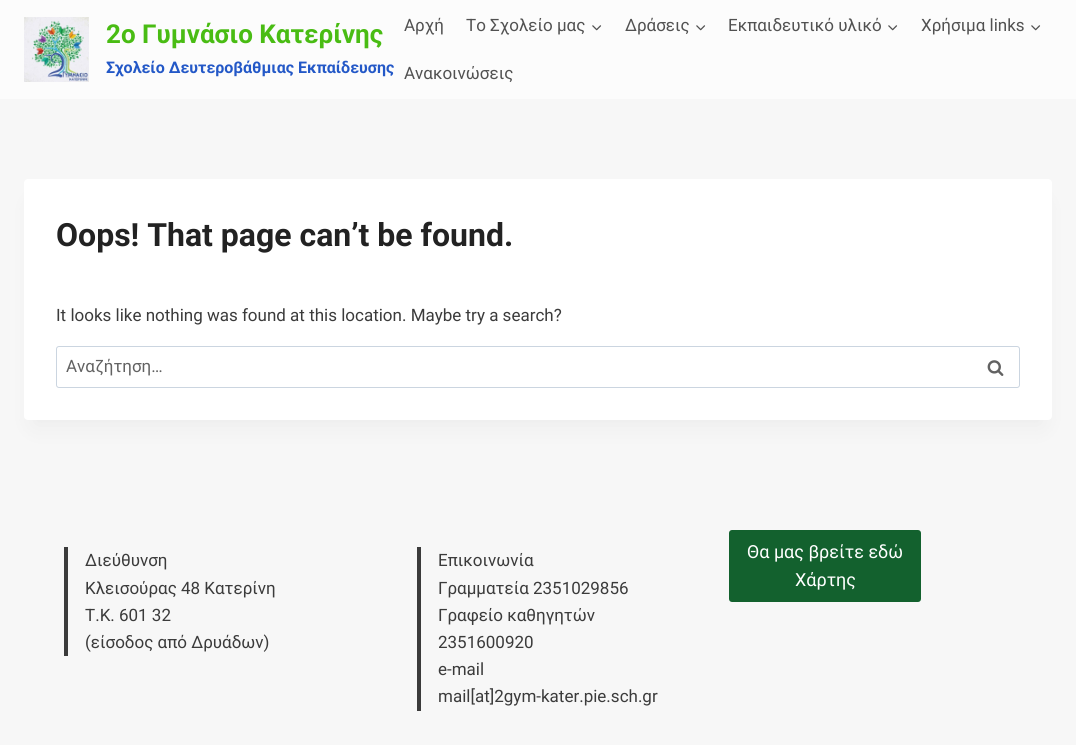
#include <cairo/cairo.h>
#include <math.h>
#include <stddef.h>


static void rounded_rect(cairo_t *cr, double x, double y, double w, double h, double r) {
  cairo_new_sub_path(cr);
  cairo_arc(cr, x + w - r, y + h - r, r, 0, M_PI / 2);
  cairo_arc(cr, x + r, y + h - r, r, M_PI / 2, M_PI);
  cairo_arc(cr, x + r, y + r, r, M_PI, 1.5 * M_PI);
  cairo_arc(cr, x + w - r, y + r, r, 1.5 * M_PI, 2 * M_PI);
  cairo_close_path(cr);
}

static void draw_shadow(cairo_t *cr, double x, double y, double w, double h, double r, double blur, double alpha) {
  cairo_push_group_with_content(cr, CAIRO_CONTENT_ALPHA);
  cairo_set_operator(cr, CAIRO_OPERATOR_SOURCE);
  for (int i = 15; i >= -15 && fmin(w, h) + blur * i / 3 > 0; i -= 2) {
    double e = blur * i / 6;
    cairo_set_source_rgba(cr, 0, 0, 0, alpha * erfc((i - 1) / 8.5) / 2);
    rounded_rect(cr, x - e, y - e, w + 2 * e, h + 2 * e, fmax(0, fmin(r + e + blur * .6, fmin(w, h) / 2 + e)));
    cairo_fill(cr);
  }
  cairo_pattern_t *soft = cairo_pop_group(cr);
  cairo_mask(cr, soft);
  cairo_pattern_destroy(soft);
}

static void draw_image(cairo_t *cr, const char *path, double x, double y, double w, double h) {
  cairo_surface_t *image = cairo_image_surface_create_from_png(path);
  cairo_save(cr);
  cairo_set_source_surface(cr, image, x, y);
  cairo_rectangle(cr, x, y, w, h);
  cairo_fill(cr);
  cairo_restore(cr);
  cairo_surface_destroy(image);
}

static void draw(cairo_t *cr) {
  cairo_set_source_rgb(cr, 247 / 255.0, 247 / 255.0, 247 / 255.0);
  cairo_paint(cr);
  cairo_set_source_rgb(cr, 252 / 255.0, 252 / 255.0, 252 / 255.0);
  cairo_rectangle(cr, 0, 0, 1076, 99);
  cairo_fill(cr);
  draw_image(cr, "images/1.png", 24, 17, 65, 65);
  draw_image(cr, "images/2.png", 592, 25, 10, 6);
  draw_image(cr, "images/2.png", 696, 25, 10, 6);
  draw_image(cr, "images/2.png", 888, 25, 10, 6);
  draw_image(cr, "images/2.png", 1031, 25, 10, 6);
  cairo_set_source_rgb(cr, 0, 0, 0);
  draw_shadow(cr, 34, 204, 1008, 221, 0, 12.5, 0.05);
  cairo_set_source_rgb(cr, 1, 1, 1);
  rounded_rect(cr, 24, 179, 1028, 241, 4);
  cairo_fill(cr);
  rounded_rect(cr, 56.5, 346.5, 963, 41, 2.5);
  cairo_set_source_rgb(cr, 203 / 255.0, 213 / 255.0, 224 / 255.0);
  cairo_set_line_width(cr, 1);
  cairo_stroke(cr);
  draw_image(cr, "images/3.png", 987, 360, 17, 16);
  cairo_set_source_rgb(cr, 59 / 255.0, 59 / 255.0, 59 / 255.0);
  cairo_rectangle(cr, 64, 547, 4, 109);
  cairo_fill(cr);
  cairo_rectangle(cr, 417, 547, 4, 164);
  cairo_fill(cr);
  cairo_set_source_rgb(cr, 19 / 255.0, 97 / 255.0, 46 / 255.0);
  rounded_rect(cr, 729, 530, 192, 72, 3);
  cairo_fill(cr);
  cairo_select_font_face(cr, "Roboto", CAIRO_FONT_SLANT_NORMAL, CAIRO_FONT_WEIGHT_BOLD);
  cairo_set_font_size(cr, 26);
  cairo_set_source_rgb(cr, 73 / 255.0, 188 / 255.0, 19 / 255.0);
  cairo_move_to(cr, 106, 43);
  cairo_show_text(cr, "2o Γυμνάσιο Κατερίνης");
  cairo_set_font_size(cr, 16);
  cairo_set_source_rgb(cr, 35 / 255.0, 88 / 255.0, 199 / 255.0);
  cairo_move_to(cr, 106, 73);
  cairo_show_text(cr, "Σχολείο Δευτεροβάθμιας Εκπαίδευσης");
  cairo_select_font_face(cr, "Roboto", CAIRO_FONT_SLANT_NORMAL, CAIRO_FONT_WEIGHT_NORMAL);
  cairo_set_font_size(cr, 17);
  cairo_set_source_rgb(cr, 81 / 255.0, 81 / 255.0, 81 / 255.0);
  cairo_move_to(cr, 404, 31);
  cairo_show_text(cr, "Αρχή");
  cairo_move_to(cr, 466, 31);
  cairo_show_text(cr, "Το Σχολείο μας");
  cairo_move_to(cr, 625, 31);
  cairo_show_text(cr, "Δράσεις");
  cairo_move_to(cr, 728, 31);
  cairo_show_text(cr, "Εκπαιδευτικό υλικό");
  cairo_move_to(cr, 921, 31);
  cairo_show_text(cr, "Χρήσιμα links");
  cairo_move_to(cr, 404, 79);
  cairo_show_text(cr, "Ανακοινώσεις");
  cairo_select_font_face(cr, "Roboto", CAIRO_FONT_SLANT_NORMAL, CAIRO_FONT_WEIGHT_BOLD);
  cairo_set_font_size(cr, 32);
  cairo_set_source_rgb(cr, 34 / 255.0, 34 / 255.0, 34 / 255.0);
  cairo_move_to(cr, 56, 246);
  cairo_show_text(cr, "Oops! That page can’t be found.");
  cairo_select_font_face(cr, "Roboto", CAIRO_FONT_SLANT_NORMAL, CAIRO_FONT_WEIGHT_NORMAL);
  cairo_set_font_size(cr, 17);
  cairo_set_source_rgb(cr, 59 / 255.0, 59 / 255.0, 59 / 255.0);
  cairo_move_to(cr, 56, 321);
  cairo_show_text(cr, "It looks like nothing was found at this location. Maybe try a search?");
  cairo_set_source_rgb(cr, 98 / 255.0, 98 / 255.0, 98 / 255.0);
  cairo_move_to(cr, 66, 372);
  cairo_show_text(cr, "Αναζήτηση…");
  cairo_set_source_rgb(cr, 59 / 255.0, 59 / 255.0, 59 / 255.0);
  cairo_move_to(cr, 85, 566);
  cairo_show_text(cr, "Διεύθυνση");
  cairo_move_to(cr, 85, 594);
  cairo_show_text(cr, "Κλεισούρας 48 Κατερίνη");
  cairo_move_to(cr, 85, 621);
  cairo_show_text(cr, "Τ.Κ. 601 32");
  cairo_move_to(cr, 85, 648);
  cairo_show_text(cr, "(είσοδος από Δρυάδων)");
  cairo_move_to(cr, 438, 566);
  cairo_show_text(cr, "Επικοινωνία");
  cairo_move_to(cr, 438, 594);
  cairo_show_text(cr, "Γραμματεία 2351029856");
  cairo_move_to(cr, 438, 621);
  cairo_show_text(cr, "Γραφείο καθηγητών");
  cairo_move_to(cr, 438, 648);
  cairo_show_text(cr, "2351600920");
  cairo_move_to(cr, 438, 675);
  cairo_show_text(cr, "e-mail");
  cairo_move_to(cr, 438, 702);
  cairo_show_text(cr, "mail[at]2gym-kater.pie.sch.gr");
  cairo_set_font_size(cr, 18);
  cairo_set_source_rgb(cr, 1, 1, 1);
  cairo_move_to(cr, 747, 558);
  cairo_show_text(cr, "Θα μας βρείτε εδώ");
  cairo_move_to(cr, 795, 586);
  cairo_show_text(cr, "Χάρτης");
}

int main(void) {
  cairo_surface_t *surface = cairo_image_surface_create(CAIRO_FORMAT_RGB24, 1076, 745);
  cairo_t *cr = cairo_create(surface);
  cairo_font_options_t *options = cairo_font_options_create();
  cairo_font_options_set_hint_metrics(options, CAIRO_HINT_METRICS_OFF);
  cairo_font_options_set_hint_style(options, CAIRO_HINT_STYLE_NONE);
  cairo_set_font_options(cr, options);
  cairo_set_miter_limit(cr, 4);
  draw(cr);
  cairo_surface_write_to_png(surface, "out.png");
  cairo_font_options_destroy(options);
  cairo_destroy(cr);
  cairo_surface_destroy(surface);
  return 0;
}
